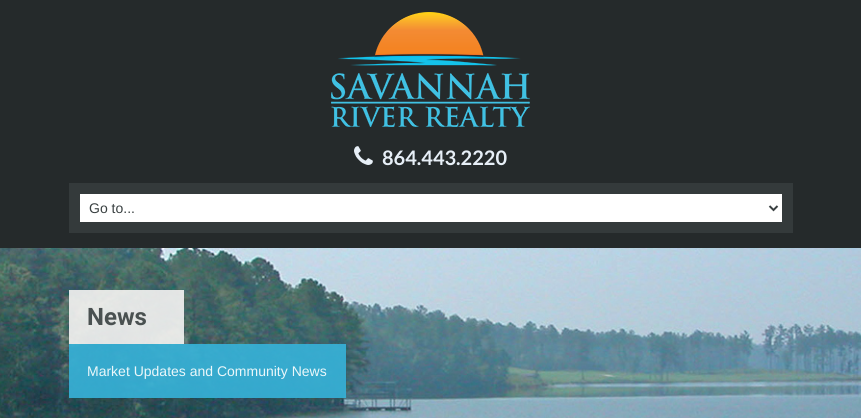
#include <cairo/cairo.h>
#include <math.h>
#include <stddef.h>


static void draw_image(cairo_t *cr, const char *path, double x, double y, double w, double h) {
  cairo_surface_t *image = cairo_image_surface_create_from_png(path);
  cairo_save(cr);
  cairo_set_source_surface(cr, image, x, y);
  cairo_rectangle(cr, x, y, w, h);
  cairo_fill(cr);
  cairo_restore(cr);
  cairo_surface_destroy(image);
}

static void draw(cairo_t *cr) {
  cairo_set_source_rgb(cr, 37 / 255.0, 42 / 255.0, 43 / 255.0);
  cairo_paint(cr);
  draw_image(cr, "images/1.png", 331, 12, 199, 115);
  draw_image(cr, "images/2.png", 354, 146, 19, 19);
  cairo_set_source_rgb(cr, 52 / 255.0, 58 / 255.0, 59 / 255.0);
  cairo_rectangle(cr, 69, 183, 724, 50);
  cairo_fill(cr);
  cairo_set_source_rgb(cr, 1, 1, 1);
  cairo_rectangle(cr, 80, 194, 702, 28);
  cairo_fill(cr);
  cairo_new_path(cr);
  cairo_move_to(cr, 769.5, 206);
  cairo_line_to(cr, 773.5, 210);
  cairo_line_to(cr, 777.5, 206);
  cairo_set_source_rgb(cr, 57 / 255.0, 64 / 255.0, 65 / 255.0);
  cairo_stroke(cr);
  draw_image(cr, "images/3.png", 0, 248, 861, 170);
  cairo_set_source_rgba(cr, 245 / 255.0, 244 / 255.0, 243 / 255.0, 0.9);
  cairo_rectangle(cr, 69, 290, 115, 54);
  cairo_fill(cr);
  cairo_set_source_rgba(cr, 55 / 255.0, 179 / 255.0, 217 / 255.0, 0.9);
  cairo_rectangle(cr, 69, 344, 277, 54);
  cairo_fill(cr);
  cairo_select_font_face(cr, "Lato", CAIRO_FONT_SLANT_NORMAL, CAIRO_FONT_WEIGHT_BOLD);
  cairo_set_font_size(cr, 20);
  cairo_set_source_rgb(cr, 231 / 255.0, 239 / 255.0, 247 / 255.0);
  cairo_move_to(cr, 382, 165);
  cairo_show_text(cr, "864.443.2220");
  cairo_select_font_face(cr, "Liberation Sans", CAIRO_FONT_SLANT_NORMAL, CAIRO_FONT_WEIGHT_NORMAL);
  cairo_set_font_size(cr, 14);
  cairo_set_source_rgb(cr, 57 / 255.0, 64 / 255.0, 65 / 255.0);
  cairo_move_to(cr, 89, 213);
  cairo_show_text(cr, "Go to...");
  cairo_select_font_face(cr, "Roboto", CAIRO_FONT_SLANT_NORMAL, CAIRO_FONT_WEIGHT_BOLD);
  cairo_set_font_size(cr, 24);
  cairo_set_source_rgb(cr, 74 / 255.0, 81 / 255.0, 81 / 255.0);
  cairo_move_to(cr, 87, 325);
  cairo_show_text(cr, "News");
  cairo_select_font_face(cr, "Liberation Sans", CAIRO_FONT_SLANT_NORMAL, CAIRO_FONT_WEIGHT_NORMAL);
  cairo_set_font_size(cr, 14);
  cairo_set_source_rgb(cr, 235 / 255.0, 247 / 255.0, 250 / 255.0);
  cairo_move_to(cr, 87, 376);
  cairo_show_text(cr, "Market Updates and Community News");
}

int main(void) {
  cairo_surface_t *surface = cairo_image_surface_create(CAIRO_FORMAT_RGB24, 861, 418);
  cairo_t *cr = cairo_create(surface);
  cairo_font_options_t *options = cairo_font_options_create();
  cairo_font_options_set_hint_metrics(options, CAIRO_HINT_METRICS_OFF);
  cairo_font_options_set_hint_style(options, CAIRO_HINT_STYLE_NONE);
  cairo_set_font_options(cr, options);
  cairo_set_miter_limit(cr, 4);
  draw(cr);
  cairo_surface_write_to_png(surface, "out.png");
  cairo_font_options_destroy(options);
  cairo_destroy(cr);
  cairo_surface_destroy(surface);
  return 0;
}
